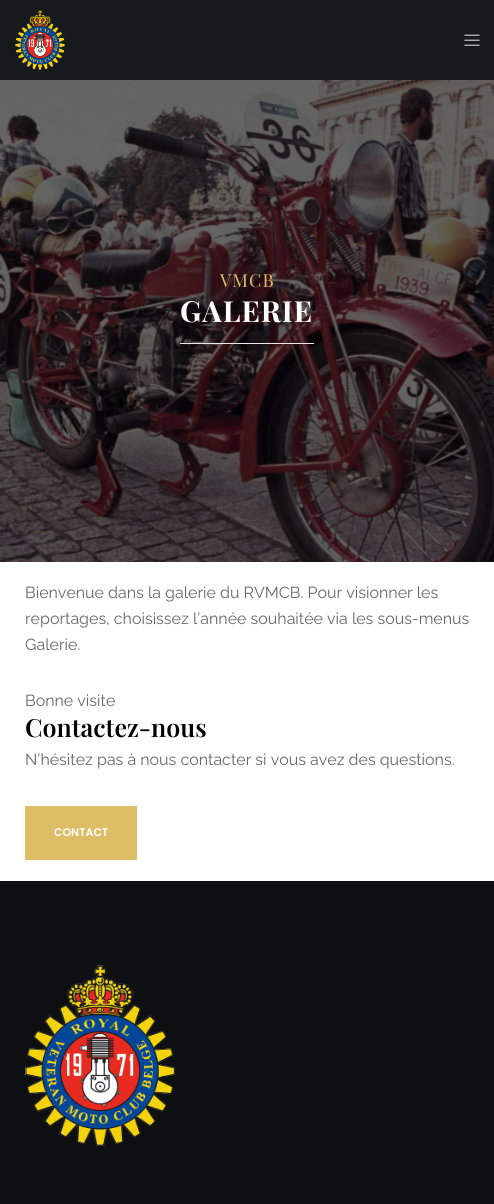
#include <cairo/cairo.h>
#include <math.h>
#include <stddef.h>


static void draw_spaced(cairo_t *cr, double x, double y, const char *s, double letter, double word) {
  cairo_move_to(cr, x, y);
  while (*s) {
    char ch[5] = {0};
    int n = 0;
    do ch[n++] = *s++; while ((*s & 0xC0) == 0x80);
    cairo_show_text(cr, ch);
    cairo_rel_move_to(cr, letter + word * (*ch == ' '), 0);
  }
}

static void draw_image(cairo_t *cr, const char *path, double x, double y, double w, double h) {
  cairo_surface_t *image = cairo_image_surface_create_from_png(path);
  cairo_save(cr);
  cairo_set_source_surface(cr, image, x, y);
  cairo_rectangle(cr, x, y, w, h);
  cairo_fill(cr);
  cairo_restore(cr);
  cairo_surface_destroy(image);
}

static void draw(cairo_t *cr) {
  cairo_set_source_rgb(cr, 23 / 255.0, 26 / 255.0, 29 / 255.0);
  cairo_paint(cr);
  draw_image(cr, "images/1.png", 15, 10, 50, 60);
  draw_image(cr, "images/2.png", 464, 34, 16, 12);
  draw_image(cr, "images/3.png", 0, 80, 494, 482);
  cairo_set_source_rgb(cr, 233 / 255.0, 233 / 255.0, 233 / 255.0);
  cairo_rectangle(cr, 180, 343, 134, 1);
  cairo_fill(cr);
  cairo_set_source_rgb(cr, 1, 1, 1);
  cairo_rectangle(cr, 0, 562, 494, 319);
  cairo_fill(cr);
  cairo_set_source_rgb(cr, 221 / 255.0, 190 / 255.0, 102 / 255.0);
  cairo_rectangle(cr, 25, 806, 112, 54);
  cairo_fill(cr);
  cairo_set_source_rgb(cr, 13 / 255.0, 15 / 255.0, 16 / 255.0);
  cairo_rectangle(cr, 0, 881, 494, 323);
  cairo_fill(cr);
  draw_image(cr, "images/4.png", 25, 965, 150, 181);
  cairo_select_font_face(cr, "Playfair Display", CAIRO_FONT_SLANT_NORMAL, CAIRO_FONT_WEIGHT_NORMAL);
  cairo_set_font_size(cr, 18);
  cairo_set_source_rgb(cr, 221 / 255.0, 190 / 255.0, 102 / 255.0);
  draw_spaced(cr, 220, 287, "VMCB", 1, 0);
  cairo_select_font_face(cr, "Playfair Display", CAIRO_FONT_SLANT_NORMAL, CAIRO_FONT_WEIGHT_BOLD);
  cairo_set_font_size(cr, 29);
  cairo_set_source_rgb(cr, 1, 1, 1);
  draw_spaced(cr, 180, 322, "GALERIE", 1, 0);
  cairo_select_font_face(cr, "Raleway Thin", CAIRO_FONT_SLANT_NORMAL, CAIRO_FONT_WEIGHT_NORMAL);
  cairo_set_font_size(cr, 16);
  cairo_set_source_rgb(cr, 103 / 255.0, 103 / 255.0, 103 / 255.0);
  cairo_move_to(cr, 25, 598);
  cairo_show_text(cr, "Bienvenue dans la galerie du RVMCB. Pour visionner les");
  cairo_move_to(cr, 25, 624);
  cairo_show_text(cr, "reportages, choisissez l’année souhaitée via les sous-menus");
  cairo_move_to(cr, 25, 650);
  cairo_show_text(cr, "Galerie.");
  cairo_move_to(cr, 25, 706);
  cairo_show_text(cr, "Bonne visite");
  cairo_select_font_face(cr, "Playfair Display SemiBold", CAIRO_FONT_SLANT_NORMAL, CAIRO_FONT_WEIGHT_NORMAL);
  cairo_set_font_size(cr, 25);
  cairo_set_source_rgb(cr, 0, 0, 0);
  cairo_move_to(cr, 25, 737);
  cairo_show_text(cr, "Contactez-nous");
  cairo_select_font_face(cr, "Raleway Thin", CAIRO_FONT_SLANT_NORMAL, CAIRO_FONT_WEIGHT_NORMAL);
  cairo_set_font_size(cr, 16);
  cairo_set_source_rgb(cr, 103 / 255.0, 103 / 255.0, 103 / 255.0);
  cairo_move_to(cr, 25, 765);
  cairo_show_text(cr, "N’hésitez pas à nous contacter si vous avez des questions.");
  cairo_select_font_face(cr, "Poppins SemiBold", CAIRO_FONT_SLANT_NORMAL, CAIRO_FONT_WEIGHT_NORMAL);
  cairo_set_font_size(cr, 11);
  cairo_set_source_rgb(cr, 1, 1, 1);
  cairo_move_to(cr, 54, 836);
  cairo_show_text(cr, "CONTACT");
}

int main(void) {
  cairo_surface_t *surface = cairo_image_surface_create(CAIRO_FORMAT_RGB24, 494, 1204);
  cairo_t *cr = cairo_create(surface);
  cairo_font_options_t *options = cairo_font_options_create();
  cairo_font_options_set_hint_metrics(options, CAIRO_HINT_METRICS_OFF);
  cairo_font_options_set_hint_style(options, CAIRO_HINT_STYLE_NONE);
  cairo_set_font_options(cr, options);
  cairo_set_miter_limit(cr, 4);
  draw(cr);
  cairo_surface_write_to_png(surface, "out.png");
  cairo_font_options_destroy(options);
  cairo_destroy(cr);
  cairo_surface_destroy(surface);
  return 0;
}
